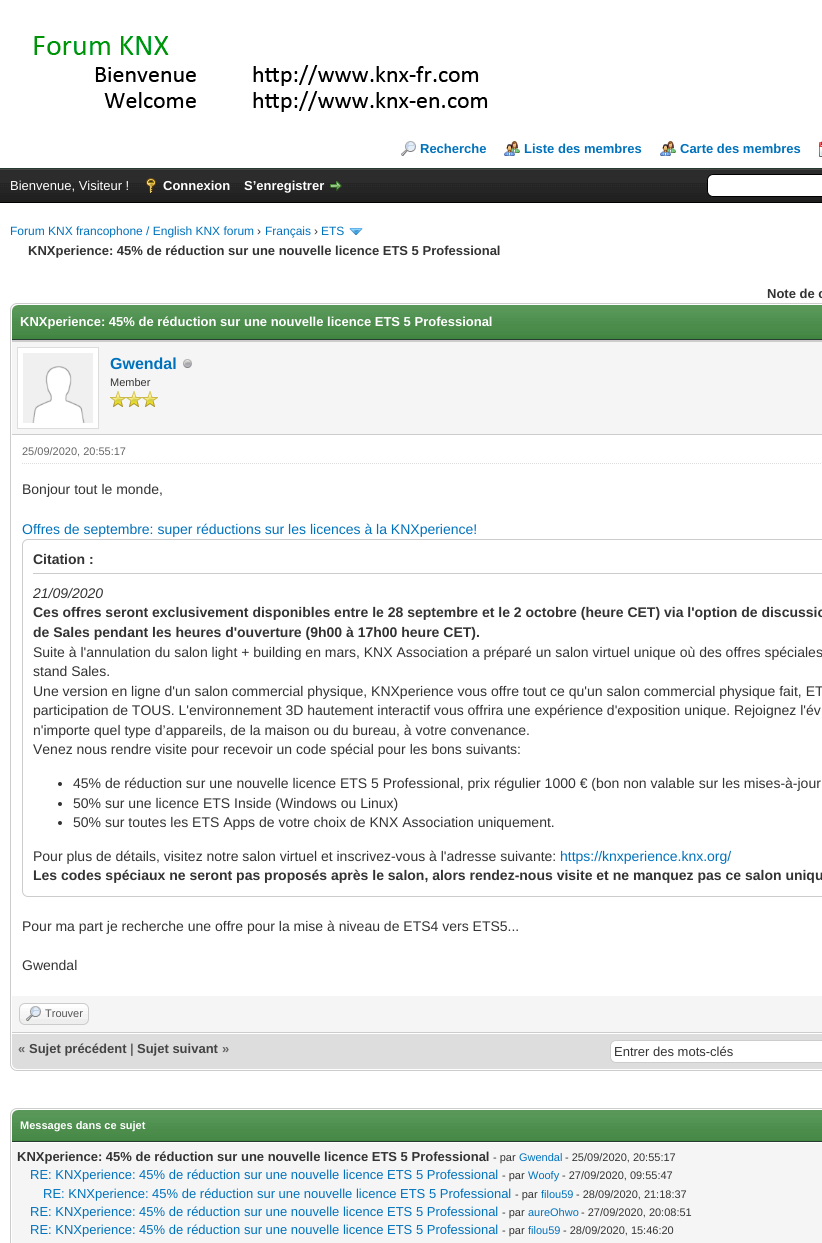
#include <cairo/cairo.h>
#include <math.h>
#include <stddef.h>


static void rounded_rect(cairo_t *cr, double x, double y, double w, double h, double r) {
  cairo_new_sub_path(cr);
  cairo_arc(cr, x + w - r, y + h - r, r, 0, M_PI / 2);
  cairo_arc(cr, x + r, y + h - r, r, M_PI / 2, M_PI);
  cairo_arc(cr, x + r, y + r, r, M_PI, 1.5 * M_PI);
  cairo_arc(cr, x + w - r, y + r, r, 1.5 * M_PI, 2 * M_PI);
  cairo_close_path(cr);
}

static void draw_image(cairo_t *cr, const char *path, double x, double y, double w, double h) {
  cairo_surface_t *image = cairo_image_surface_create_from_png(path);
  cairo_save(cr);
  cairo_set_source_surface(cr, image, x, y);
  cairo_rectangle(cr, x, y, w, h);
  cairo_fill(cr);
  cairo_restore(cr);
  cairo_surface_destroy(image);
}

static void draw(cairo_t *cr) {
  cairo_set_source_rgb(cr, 1, 1, 1);
  cairo_paint(cr);
  cairo_set_source_rgb(cr, 38 / 255.0, 60 / 255.0, 48 / 255.0);
  cairo_rectangle(cr, 0, 168, 822, 1);
  cairo_fill(cr);
  draw_image(cr, "images/1.png", 34, 36, 454, 76);
  draw_image(cr, "images/2.png", 401, 141, 15, 15);
  draw_image(cr, "images/3.png", 504, 141, 16, 15);
  draw_image(cr, "images/3.png", 660, 141, 16, 15);
  draw_image(cr, "images/4.png", 819, 141, 3, 16);
  draw_image(cr, "images/5.png", 0, 170, 822, 32);
  cairo_set_source_rgb(cr, 68 / 255.0, 68 / 255.0, 68 / 255.0);
  cairo_rectangle(cr, 0, 169, 822, 1);
  cairo_fill(cr);
  cairo_set_source_rgb(cr, 0, 0, 0);
  cairo_rectangle(cr, 0, 202, 822, 1);
  cairo_fill(cr);
  draw_image(cr, "images/6.png", 146, 178, 10, 15);
  draw_image(cr, "images/7.png", 330, 181, 12, 10);
  cairo_set_source_rgb(cr, 1, 1, 1);
  rounded_rect(cr, 707.5, 174.5, 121, 22, 5.5);
  cairo_fill_preserve(cr);
  cairo_set_source_rgb(cr, 0, 0, 0);
  cairo_set_line_width(cr, 1);
  cairo_stroke(cr);
  draw_image(cr, "images/8.png", 349, 228, 14, 7);
  rounded_rect(cr, 10.5, 303.5, 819, 767, 6.5);
  cairo_set_source_rgb(cr, 204 / 255.0, 204 / 255.0, 204 / 255.0);
  cairo_stroke(cr);
  draw_image(cr, "images/9.png", 12, 305, 810, 34);
  cairo_set_source_rgb(cr, 38 / 255.0, 60 / 255.0, 48 / 255.0);
  cairo_rectangle(cr, 12, 339, 810, 1);
  cairo_fill(cr);
  cairo_set_source_rgb(cr, 245 / 255.0, 245 / 255.0, 245 / 255.0);
  cairo_rectangle(cr, 12, 342, 810, 92);
  cairo_fill(cr);
  cairo_set_source_rgb(cr, 204 / 255.0, 204 / 255.0, 204 / 255.0);
  cairo_rectangle(cr, 12, 340, 810, 2);
  cairo_fill(cr);
  cairo_rectangle(cr, 12, 434, 810, 1);
  cairo_fill(cr);
  cairo_set_source_rgb(cr, 1, 1, 1);
  cairo_rectangle(cr, 17.5, 347.5, 81, 81);
  cairo_fill_preserve(cr);
  cairo_set_source_rgb(cr, 221 / 255.0, 221 / 255.0, 221 / 255.0);
  cairo_stroke(cr);
  draw_image(cr, "images/10.png", 23, 353, 70, 70);
  draw_image(cr, "images/11.png", 183, 359, 9, 9);
  draw_image(cr, "images/12.png", 110, 391, 16, 16);
  draw_image(cr, "images/12.png", 126, 391, 16, 16);
  draw_image(cr, "images/12.png", 142, 391, 16, 16);
  cairo_new_path(cr);
  cairo_move_to(cr, 22, 463.5);
  cairo_line_to(cr, 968, 463.5);
  cairo_set_dash(cr, (double[]){1, 1}, 2, 0);
  cairo_stroke(cr);
  rounded_rect(cr, 22.5, 539.5, 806, 357, 5.5);
  cairo_set_source_rgb(cr, 204 / 255.0, 204 / 255.0, 204 / 255.0);
  cairo_set_dash(cr, NULL, 0, 0);
  cairo_stroke(cr);
  cairo_rectangle(cr, 33, 573, 789, 1);
  cairo_fill(cr);
  cairo_set_source_rgb(cr, 51 / 255.0, 51 / 255.0, 51 / 255.0);
  cairo_arc(cr, 60, 784, 2, 0, 2 * M_PI);
  cairo_fill(cr);
  cairo_arc(cr, 60, 804, 2, 0, 2 * M_PI);
  cairo_fill(cr);
  cairo_arc(cr, 60, 823, 2, 0, 2 * M_PI);
  cairo_fill(cr);
  cairo_set_source_rgb(cr, 245 / 255.0, 245 / 255.0, 245 / 255.0);
  cairo_rectangle(cr, 12, 996, 810, 36);
  cairo_fill(cr);
  cairo_set_source_rgb(cr, 204 / 255.0, 204 / 255.0, 204 / 255.0);
  cairo_rectangle(cr, 12, 1032, 810, 1);
  cairo_fill(cr);
  cairo_set_source_rgb(cr, 238 / 255.0, 238 / 255.0, 238 / 255.0);
  rounded_rect(cr, 19, 1003, 70, 22, 6);
  cairo_fill(cr);
  draw_image(cr, "images/13.png", 19, 1004, 70, 15);
  rounded_rect(cr, 19.5, 1003.5, 69, 21, 5.5);
  cairo_set_source_rgb(cr, 204 / 255.0, 204 / 255.0, 204 / 255.0);
  cairo_stroke(cr);
  draw_image(cr, "images/14.png", 26, 1006, 15, 15);
  cairo_set_source_rgb(cr, 221 / 255.0, 221 / 255.0, 221 / 255.0);
  cairo_new_path(cr);
  cairo_move_to(cr, 12, 1033);
  cairo_line_to(cr, 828, 1033);
  cairo_line_to(cr, 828, 1063);
  cairo_curve_to(cr, 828, 1066.5, 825.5, 1069, 822, 1069);
  cairo_line_to(cr, 18, 1069);
  cairo_curve_to(cr, 14.5, 1069, 12, 1066.5, 12, 1063);
  cairo_close_path(cr);
  cairo_fill(cr);
  cairo_set_source_rgb(cr, 1, 1, 1);
  cairo_rectangle(cr, 12, 1033, 810, 1);
  cairo_fill(cr);
  rounded_rect(cr, 610.5, 1040.5, 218, 22, 5.5);
  cairo_fill_preserve(cr);
  cairo_set_source_rgb(cr, 204 / 255.0, 204 / 255.0, 204 / 255.0);
  cairo_stroke(cr);
  rounded_rect(cr, 10.5, 1108.5, 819, 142, 6.5);
  cairo_stroke(cr);
  draw_image(cr, "images/15.png", 12, 1110, 810, 31);
  cairo_set_source_rgb(cr, 38 / 255.0, 60 / 255.0, 48 / 255.0);
  cairo_rectangle(cr, 12, 1141, 810, 1);
  cairo_fill(cr);
  cairo_set_source_rgb(cr, 245 / 255.0, 245 / 255.0, 245 / 255.0);
  cairo_rectangle(cr, 12, 1143, 810, 100);
  cairo_fill(cr);
  cairo_select_font_face(cr, "Liberation Sans", CAIRO_FONT_SLANT_NORMAL, CAIRO_FONT_WEIGHT_BOLD);
  cairo_set_font_size(cr, 13);
  cairo_set_source_rgb(cr, 0, 114 / 255.0, 188 / 255.0);
  cairo_move_to(cr, 420, 153);
  cairo_show_text(cr, "Recherche");
  cairo_move_to(cr, 524, 153);
  cairo_show_text(cr, "Liste des membres");
  cairo_move_to(cr, 680, 153);
  cairo_show_text(cr, "Carte des membres");
  cairo_select_font_face(cr, "Liberation Sans", CAIRO_FONT_SLANT_NORMAL, CAIRO_FONT_WEIGHT_NORMAL);
  cairo_set_source_rgb(cr, 1, 1, 1);
  cairo_move_to(cr, 10, 190);
  cairo_show_text(cr, "Bienvenue, Visiteur !");
  cairo_select_font_face(cr, "Liberation Sans", CAIRO_FONT_SLANT_NORMAL, CAIRO_FONT_WEIGHT_BOLD);
  cairo_move_to(cr, 163, 190);
  cairo_show_text(cr, "Connexion");
  cairo_move_to(cr, 244, 190);
  cairo_show_text(cr, "S’enregistrer");
  cairo_select_font_face(cr, "Liberation Sans", CAIRO_FONT_SLANT_NORMAL, CAIRO_FONT_WEIGHT_NORMAL);
  cairo_set_font_size(cr, 12);
  cairo_set_source_rgb(cr, 0, 114 / 255.0, 188 / 255.0);
  cairo_move_to(cr, 10, 235);
  cairo_show_text(cr, "Forum KNX francophone / English KNX forum");
  cairo_set_source_rgb(cr, 51 / 255.0, 51 / 255.0, 51 / 255.0);
  cairo_move_to(cr, 257, 235);
  cairo_show_text(cr, "›");
  cairo_set_source_rgb(cr, 0, 114 / 255.0, 188 / 255.0);
  cairo_move_to(cr, 265, 235);
  cairo_show_text(cr, "Français");
  cairo_set_source_rgb(cr, 51 / 255.0, 51 / 255.0, 51 / 255.0);
  cairo_move_to(cr, 314, 235);
  cairo_show_text(cr, "›");
  cairo_set_source_rgb(cr, 0, 114 / 255.0, 188 / 255.0);
  cairo_move_to(cr, 321, 235);
  cairo_show_text(cr, "ETS");
  cairo_select_font_face(cr, "Liberation Sans", CAIRO_FONT_SLANT_NORMAL, CAIRO_FONT_WEIGHT_BOLD);
  cairo_set_font_size(cr, 13);
  cairo_set_source_rgb(cr, 51 / 255.0, 51 / 255.0, 51 / 255.0);
  cairo_move_to(cr, 28, 255);
  cairo_show_text(cr, "KNXperience: 45% de réduction sur une nouvelle licence ETS 5 Professional");
  cairo_move_to(cr, 767, 298);
  cairo_show_text(cr, "Note de c");
  cairo_set_source_rgb(cr, 1, 1, 1);
  cairo_move_to(cr, 20, 326);
  cairo_show_text(cr, "KNXperience: 45% de réduction sur une nouvelle licence ETS 5 Professional");
  cairo_set_font_size(cr, 16);
  cairo_set_source_rgb(cr, 0, 114 / 255.0, 188 / 255.0);
  cairo_move_to(cr, 110, 369);
  cairo_show_text(cr, "Gwendal");
  cairo_select_font_face(cr, "Liberation Sans", CAIRO_FONT_SLANT_NORMAL, CAIRO_FONT_WEIGHT_NORMAL);
  cairo_set_font_size(cr, 11);
  cairo_set_source_rgb(cr, 51 / 255.0, 51 / 255.0, 51 / 255.0);
  cairo_move_to(cr, 110, 386);
  cairo_show_text(cr, "Member");
  cairo_set_source_rgb(cr, 102 / 255.0, 102 / 255.0, 102 / 255.0);
  cairo_move_to(cr, 22, 455);
  cairo_show_text(cr, "25/09/2020, 20:55:17");
  cairo_set_font_size(cr, 14);
  cairo_set_source_rgb(cr, 51 / 255.0, 51 / 255.0, 51 / 255.0);
  cairo_move_to(cr, 22, 494);
  cairo_show_text(cr, "Bonjour tout le monde,");
  cairo_set_source_rgb(cr, 0, 114 / 255.0, 188 / 255.0);
  cairo_move_to(cr, 22, 534);
  cairo_show_text(cr, "Offres de septembre: super réductions sur les licences à la KNXperience!");
  cairo_select_font_face(cr, "Liberation Sans", CAIRO_FONT_SLANT_NORMAL, CAIRO_FONT_WEIGHT_BOLD);
  cairo_set_source_rgb(cr, 51 / 255.0, 51 / 255.0, 51 / 255.0);
  cairo_move_to(cr, 33, 564);
  cairo_show_text(cr, "Citation :");
  cairo_select_font_face(cr, "Liberation Sans", CAIRO_FONT_SLANT_ITALIC, CAIRO_FONT_WEIGHT_NORMAL);
  cairo_move_to(cr, 33, 598);
  cairo_show_text(cr, "21/09/2020");
  cairo_select_font_face(cr, "Liberation Sans", CAIRO_FONT_SLANT_NORMAL, CAIRO_FONT_WEIGHT_BOLD);
  cairo_move_to(cr, 33, 617);
  cairo_show_text(cr, "Ces offres seront exclusivement disponibles entre le 28 septembre et le 2 octobre (heure CET) via l'option de discussio");
  cairo_move_to(cr, 33, 637);
  cairo_show_text(cr, "de Sales pendant les heures d'ouverture (9h00 à 17h00 heure CET).");
  cairo_select_font_face(cr, "Liberation Sans", CAIRO_FONT_SLANT_NORMAL, CAIRO_FONT_WEIGHT_NORMAL);
  cairo_move_to(cr, 33, 657);
  cairo_show_text(cr, "Suite à l'annulation du salon light + building en mars, KNX Association a préparé un salon virtuel unique où des offres spéciales");
  cairo_move_to(cr, 33, 676);
  cairo_show_text(cr, "stand Sales.");
  cairo_move_to(cr, 33, 696);
  cairo_show_text(cr, "Une version en ligne d'un salon commercial physique, KNXperience vous offre tout ce qu'un salon commercial physique fait, ET");
  cairo_move_to(cr, 33, 715);
  cairo_show_text(cr, "participation de TOUS. L'environnement 3D hautement interactif vous offrira une expérience d'exposition unique. Rejoignez l'év");
  cairo_move_to(cr, 33, 735);
  cairo_show_text(cr, "n'importe quel type d’appareils, de la maison ou du bureau, à votre convenance.");
  cairo_move_to(cr, 33, 754);
  cairo_show_text(cr, "Venez nous rendre visite pour recevoir un code spécial pour les bons suivants:");
  cairo_move_to(cr, 73, 788);
  cairo_show_text(cr, "45% de réduction sur une nouvelle licence ETS 5 Professional, prix régulier 1000 € (bon non valable sur les mises-à-jour");
  cairo_move_to(cr, 73, 808);
  cairo_show_text(cr, "50% sur une licence ETS Inside (Windows ou Linux)");
  cairo_move_to(cr, 73, 827);
  cairo_show_text(cr, "50% sur toutes les ETS Apps de votre choix de KNX Association uniquement.");
  cairo_move_to(cr, 33, 861);
  cairo_show_text(cr, "Pour plus de détails, visitez notre salon virtuel et inscrivez-vous à l'adresse suivante:");
  cairo_set_source_rgb(cr, 0, 114 / 255.0, 188 / 255.0);
  cairo_move_to(cr, 560, 861);
  cairo_show_text(cr, "https://knxperience.knx.org/");
  cairo_select_font_face(cr, "Liberation Sans", CAIRO_FONT_SLANT_NORMAL, CAIRO_FONT_WEIGHT_BOLD);
  cairo_set_source_rgb(cr, 51 / 255.0, 51 / 255.0, 51 / 255.0);
  cairo_move_to(cr, 33, 880);
  cairo_show_text(cr, "Les codes spéciaux ne seront pas proposés après le salon, alors rendez-nous visite et ne manquez pas ce salon uniqu");
  cairo_select_font_face(cr, "Liberation Sans", CAIRO_FONT_SLANT_NORMAL, CAIRO_FONT_WEIGHT_NORMAL);
  cairo_move_to(cr, 22, 931);
  cairo_show_text(cr, "Pour ma part je recherche une offre pour la mise à niveau de ETS4 vers ETS5...");
  cairo_move_to(cr, 22, 970);
  cairo_show_text(cr, "Gwendal");
  cairo_set_font_size(cr, 11);
  cairo_set_source_rgb(cr, 85 / 255.0, 85 / 255.0, 85 / 255.0);
  cairo_move_to(cr, 45, 1017);
  cairo_show_text(cr, "Trouver");
  cairo_select_font_face(cr, "Liberation Sans", CAIRO_FONT_SLANT_NORMAL, CAIRO_FONT_WEIGHT_BOLD);
  cairo_set_font_size(cr, 13);
  cairo_set_source_rgb(cr, 102 / 255.0, 102 / 255.0, 102 / 255.0);
  cairo_move_to(cr, 18, 1053);
  cairo_show_text(cr, "«");
  cairo_set_source_rgb(cr, 68 / 255.0, 68 / 255.0, 68 / 255.0);
  cairo_move_to(cr, 29, 1053);
  cairo_show_text(cr, "Sujet précédent");
  cairo_set_source_rgb(cr, 102 / 255.0, 102 / 255.0, 102 / 255.0);
  cairo_move_to(cr, 130, 1053);
  cairo_show_text(cr, "|");
  cairo_set_source_rgb(cr, 68 / 255.0, 68 / 255.0, 68 / 255.0);
  cairo_move_to(cr, 137, 1053);
  cairo_show_text(cr, "Sujet suivant");
  cairo_set_source_rgb(cr, 102 / 255.0, 102 / 255.0, 102 / 255.0);
  cairo_move_to(cr, 222, 1053);
  cairo_show_text(cr, "»");
  cairo_select_font_face(cr, "Liberation Sans", CAIRO_FONT_SLANT_NORMAL, CAIRO_FONT_WEIGHT_NORMAL);
  cairo_set_source_rgb(cr, 51 / 255.0, 51 / 255.0, 51 / 255.0);
  cairo_move_to(cr, 614, 1056);
  cairo_show_text(cr, "Entrer des mots-clés");
  cairo_select_font_face(cr, "Liberation Sans", CAIRO_FONT_SLANT_NORMAL, CAIRO_FONT_WEIGHT_BOLD);
  cairo_set_font_size(cr, 11);
  cairo_set_source_rgb(cr, 1, 1, 1);
  cairo_move_to(cr, 20, 1129);
  cairo_show_text(cr, "Messages dans ce sujet");
  cairo_set_font_size(cr, 13);
  cairo_set_source_rgb(cr, 51 / 255.0, 51 / 255.0, 51 / 255.0);
  cairo_move_to(cr, 17, 1161);
  cairo_show_text(cr, "KNXperience: 45% de réduction sur une nouvelle licence ETS 5 Professional");
  cairo_select_font_face(cr, "Liberation Sans", CAIRO_FONT_SLANT_NORMAL, CAIRO_FONT_WEIGHT_NORMAL);
  cairo_set_font_size(cr, 11);
  cairo_move_to(cr, 493, 1161);
  cairo_show_text(cr, "- par");
  cairo_set_source_rgb(cr, 0, 114 / 255.0, 188 / 255.0);
  cairo_move_to(cr, 519, 1161);
  cairo_show_text(cr, "Gwendal");
  cairo_set_source_rgb(cr, 51 / 255.0, 51 / 255.0, 51 / 255.0);
  cairo_move_to(cr, 565, 1161);
  cairo_show_text(cr, "- 25/09/2020, 20:55:17");
  cairo_set_font_size(cr, 13);
  cairo_set_source_rgb(cr, 0, 114 / 255.0, 188 / 255.0);
  cairo_move_to(cr, 30, 1179);
  cairo_show_text(cr, "RE: KNXperience: 45% de réduction sur une nouvelle licence ETS 5 Professional");
  cairo_set_font_size(cr, 11);
  cairo_set_source_rgb(cr, 51 / 255.0, 51 / 255.0, 51 / 255.0);
  cairo_move_to(cr, 502, 1179);
  cairo_show_text(cr, "- par");
  cairo_set_source_rgb(cr, 0, 114 / 255.0, 188 / 255.0);
  cairo_move_to(cr, 528, 1179);
  cairo_show_text(cr, "Woofy");
  cairo_set_source_rgb(cr, 51 / 255.0, 51 / 255.0, 51 / 255.0);
  cairo_move_to(cr, 562, 1179);
  cairo_show_text(cr, "- 27/09/2020, 09:55:47");
  cairo_set_font_size(cr, 13);
  cairo_set_source_rgb(cr, 0, 114 / 255.0, 188 / 255.0);
  cairo_move_to(cr, 43, 1198);
  cairo_show_text(cr, "RE: KNXperience: 45% de réduction sur une nouvelle licence ETS 5 Professional");
  cairo_set_font_size(cr, 11);
  cairo_set_source_rgb(cr, 51 / 255.0, 51 / 255.0, 51 / 255.0);
  cairo_move_to(cr, 515, 1198);
  cairo_show_text(cr, "- par");
  cairo_set_source_rgb(cr, 0, 114 / 255.0, 188 / 255.0);
  cairo_move_to(cr, 541, 1198);
  cairo_show_text(cr, "filou59");
  cairo_set_source_rgb(cr, 51 / 255.0, 51 / 255.0, 51 / 255.0);
  cairo_move_to(cr, 576, 1198);
  cairo_show_text(cr, "- 28/09/2020, 21:18:37");
  cairo_set_font_size(cr, 13);
  cairo_set_source_rgb(cr, 0, 114 / 255.0, 188 / 255.0);
  cairo_move_to(cr, 30, 1216);
  cairo_show_text(cr, "RE: KNXperience: 45% de réduction sur une nouvelle licence ETS 5 Professional");
  cairo_set_font_size(cr, 11);
  cairo_set_source_rgb(cr, 51 / 255.0, 51 / 255.0, 51 / 255.0);
  cairo_move_to(cr, 502, 1216);
  cairo_show_text(cr, "- par");
  cairo_set_source_rgb(cr, 0, 114 / 255.0, 188 / 255.0);
  cairo_move_to(cr, 528, 1216);
  cairo_show_text(cr, "aureOhwo");
  cairo_set_source_rgb(cr, 51 / 255.0, 51 / 255.0, 51 / 255.0);
  cairo_move_to(cr, 581, 1216);
  cairo_show_text(cr, "- 27/09/2020, 20:08:51");
  cairo_set_font_size(cr, 13);
  cairo_set_source_rgb(cr, 0, 114 / 255.0, 188 / 255.0);
  cairo_move_to(cr, 30, 1234);
  cairo_show_text(cr, "RE: KNXperience: 45% de réduction sur une nouvelle licence ETS 5 Professional");
  cairo_set_font_size(cr, 11);
  cairo_set_source_rgb(cr, 51 / 255.0, 51 / 255.0, 51 / 255.0);
  cairo_move_to(cr, 502, 1234);
  cairo_show_text(cr, "- par");
  cairo_set_source_rgb(cr, 0, 114 / 255.0, 188 / 255.0);
  cairo_move_to(cr, 528, 1234);
  cairo_show_text(cr, "filou59");
  cairo_set_source_rgb(cr, 51 / 255.0, 51 / 255.0, 51 / 255.0);
  cairo_move_to(cr, 563, 1234);
  cairo_show_text(cr, "- 28/09/2020, 15:46:20");
}

int main(void) {
  cairo_surface_t *surface = cairo_image_surface_create(CAIRO_FORMAT_RGB24, 822, 1243);
  cairo_t *cr = cairo_create(surface);
  cairo_font_options_t *options = cairo_font_options_create();
  cairo_font_options_set_hint_metrics(options, CAIRO_HINT_METRICS_OFF);
  cairo_font_options_set_hint_style(options, CAIRO_HINT_STYLE_NONE);
  cairo_set_font_options(cr, options);
  cairo_set_miter_limit(cr, 4);
  draw(cr);
  cairo_surface_write_to_png(surface, "out.png");
  cairo_font_options_destroy(options);
  cairo_destroy(cr);
  cairo_surface_destroy(surface);
  return 0;
}
